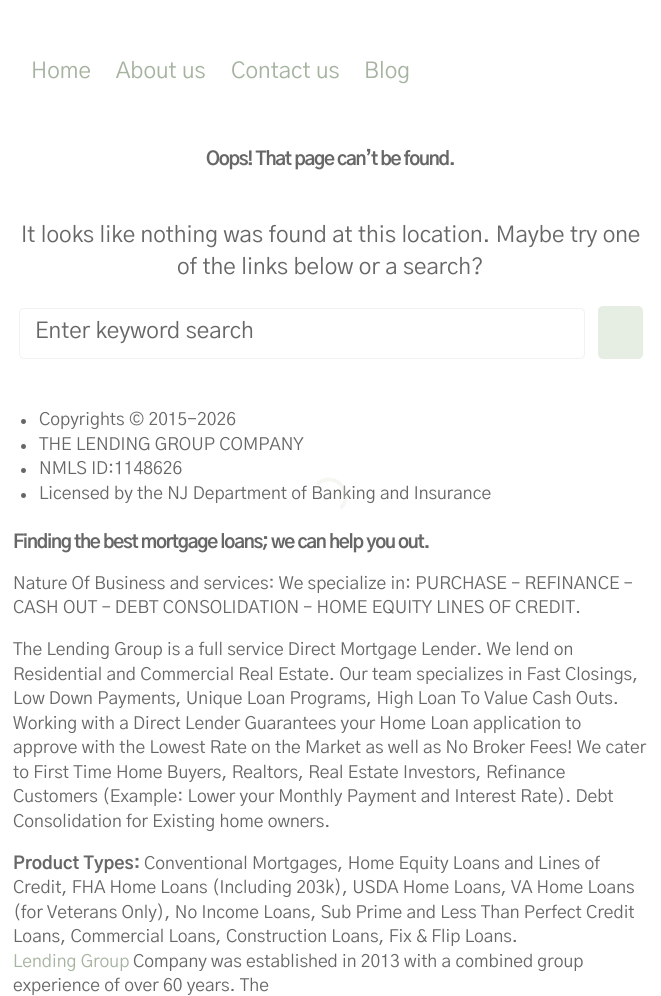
#include <cairo/cairo.h>
#include <math.h>
#include <stddef.h>


static void draw_spaced(cairo_t *cr, double x, double y, const char *s, double letter, double word) {
  cairo_move_to(cr, x, y);
  while (*s) {
    char ch[5] = {0};
    int n = 0;
    do ch[n++] = *s++; while ((*s & 0xC0) == 0x80);
    cairo_show_text(cr, ch);
    cairo_rel_move_to(cr, letter + word * (*ch == ' '), 0);
  }
}

static void rounded_rect(cairo_t *cr, double x, double y, double w, double h, double r) {
  cairo_new_sub_path(cr);
  cairo_arc(cr, x + w - r, y + h - r, r, 0, M_PI / 2);
  cairo_arc(cr, x + r, y + h - r, r, M_PI / 2, M_PI);
  cairo_arc(cr, x + r, y + r, r, M_PI, 1.5 * M_PI);
  cairo_arc(cr, x + w - r, y + r, r, 1.5 * M_PI, 2 * M_PI);
  cairo_close_path(cr);
}

static void draw(cairo_t *cr) {
  cairo_set_source_rgb(cr, 1, 1, 1);
  cairo_paint(cr);
  rounded_rect(cr, 19.5, 308.5, 565, 50, 4.5);
  cairo_set_source_rgb(cr, 241 / 255.0, 242 / 255.0, 243 / 255.0);
  cairo_set_line_width(cr, 1);
  cairo_stroke(cr);
  cairo_set_source_rgb(cr, 230 / 255.0, 238 / 255.0, 227 / 255.0);
  rounded_rect(cr, 598, 306, 45, 53, 5);
  cairo_fill(cr);
  cairo_set_source_rgb(cr, 103 / 255.0, 103 / 255.0, 103 / 255.0);
  cairo_arc(cr, 23.5, 421.5, 2.5, 0, 2 * M_PI);
  cairo_fill(cr);
  cairo_arc(cr, 23.5, 446.5, 2.5, 0, 2 * M_PI);
  cairo_fill(cr);
  cairo_arc(cr, 23.5, 470.5, 2.5, 0, 2 * M_PI);
  cairo_fill(cr);
  cairo_arc(cr, 23.5, 495.5, 2.5, 0, 2 * M_PI);
  cairo_fill(cr);
  cairo_select_font_face(cr, "Gothic A1", CAIRO_FONT_SLANT_NORMAL, CAIRO_FONT_WEIGHT_NORMAL);
  cairo_set_font_size(cr, 22.5);
  cairo_set_source_rgb(cr, 166 / 255.0, 179 / 255.0, 160 / 255.0);
  cairo_move_to(cr, 31, 78);
  cairo_show_text(cr, "Home");
  cairo_move_to(cr, 116, 78);
  cairo_show_text(cr, "About us");
  cairo_move_to(cr, 231, 78);
  cairo_show_text(cr, "Contact us");
  cairo_move_to(cr, 364, 78);
  cairo_show_text(cr, "Blog");
  cairo_select_font_face(cr, "Gothic A1", CAIRO_FONT_SLANT_NORMAL, CAIRO_FONT_WEIGHT_BOLD);
  cairo_set_font_size(cr, 18.75);
  cairo_set_source_rgb(cr, 103 / 255.0, 103 / 255.0, 103 / 255.0);
  draw_spaced(cr, 206, 165, "Oops! That page can’t be found.", -1.25, 0);
  cairo_select_font_face(cr, "Gothic A1", CAIRO_FONT_SLANT_NORMAL, CAIRO_FONT_WEIGHT_NORMAL);
  cairo_set_font_size(cr, 22.5);
  cairo_move_to(cr, 21, 242);
  cairo_show_text(cr, "It looks like nothing was found at this location. Maybe try one");
  cairo_move_to(cr, 177, 274);
  cairo_show_text(cr, "of the links below or a search?");
  cairo_move_to(cr, 35, 338);
  cairo_show_text(cr, "Enter keyword search");
  cairo_set_font_size(cr, 17.5);
  cairo_move_to(cr, 39, 425);
  cairo_show_text(cr, "Copyrights © 2015-2026");
  cairo_move_to(cr, 39, 450);
  cairo_show_text(cr, "THE LENDING GROUP COMPANY");
  cairo_move_to(cr, 39, 474);
  cairo_show_text(cr, "NMLS ID:1148626");
  cairo_move_to(cr, 39, 499);
  cairo_show_text(cr, "Licensed by the NJ Department of Banking and Insurance");
  cairo_select_font_face(cr, "Gothic A1", CAIRO_FONT_SLANT_NORMAL, CAIRO_FONT_WEIGHT_BOLD);
  cairo_set_font_size(cr, 18.75);
  draw_spaced(cr, 13, 548, "Finding the best mortgage loans; we can help you out.", -1.25, 0);
  cairo_select_font_face(cr, "Gothic A1", CAIRO_FONT_SLANT_NORMAL, CAIRO_FONT_WEIGHT_NORMAL);
  cairo_set_font_size(cr, 17.5);
  cairo_move_to(cr, 13, 589);
  cairo_show_text(cr, "Nature Of Business and services: We specialize in: PURCHASE – REFINANCE –");
  cairo_move_to(cr, 13, 613);
  cairo_show_text(cr, "CASH OUT – DEBT CONSOLIDATION – HOME EQUITY LINES OF CREDIT.");
  cairo_move_to(cr, 13, 655);
  cairo_show_text(cr, "The Lending Group is a full service Direct Mortgage Lender. We lend on");
  cairo_move_to(cr, 13, 680);
  cairo_show_text(cr, "Residential and Commercial Real Estate. Our team specializes in Fast Closings,");
  cairo_move_to(cr, 13, 704);
  cairo_show_text(cr, "Low Down Payments, Unique Loan Programs, High Loan To Value Cash Outs.");
  cairo_move_to(cr, 13, 729);
  cairo_show_text(cr, "Working with a Direct Lender Guarantees your Home Loan application to");
  cairo_move_to(cr, 13, 753);
  cairo_show_text(cr, "approve with the Lowest Rate on the Market as well as No Broker Fees! We cater");
  cairo_move_to(cr, 13, 778);
  cairo_show_text(cr, "to First Time Home Buyers, Realtors, Real Estate Investors, Refinance");
  cairo_move_to(cr, 13, 802);
  cairo_show_text(cr, "Customers (Example: Lower your Monthly Payment and Interest Rate). Debt");
  cairo_move_to(cr, 13, 827);
  cairo_show_text(cr, "Consolidation for Existing home owners.");
  cairo_select_font_face(cr, "Gothic A1", CAIRO_FONT_SLANT_NORMAL, CAIRO_FONT_WEIGHT_BOLD);
  cairo_move_to(cr, 13, 869);
  cairo_show_text(cr, "Product Types:");
  cairo_select_font_face(cr, "Gothic A1", CAIRO_FONT_SLANT_NORMAL, CAIRO_FONT_WEIGHT_NORMAL);
  cairo_move_to(cr, 144, 869);
  cairo_show_text(cr, "Conventional Mortgages, Home Equity Loans and Lines of");
  cairo_move_to(cr, 13, 893);
  cairo_show_text(cr, "Credit, FHA Home Loans (Including 203k), USDA Home Loans, VA Home Loans");
  cairo_move_to(cr, 13, 918);
  cairo_show_text(cr, "(for Veterans Only), No Income Loans, Sub Prime and Less Than Perfect Credit");
  cairo_move_to(cr, 13, 942);
  cairo_show_text(cr, "Loans, Commercial Loans, Construction Loans, Fix & Flip Loans.");
  cairo_set_source_rgb(cr, 166 / 255.0, 179 / 255.0, 160 / 255.0);
  cairo_move_to(cr, 13, 967);
  cairo_show_text(cr, "Lending Group");
  cairo_set_source_rgb(cr, 103 / 255.0, 103 / 255.0, 103 / 255.0);
  cairo_move_to(cr, 133, 967);
  cairo_show_text(cr, "Company was established in 2013 with a combined group");
  cairo_move_to(cr, 13, 991);
  cairo_show_text(cr, "experience of over 60 years. The");
  cairo_new_path(cr);
  cairo_move_to(cr, 317, 484.5);
  cairo_curve_to(cr, 328.5, 472.5, 348.5, 483.5, 345.5, 499.5);
  cairo_curve_to(cr, 344.5, 503, 343, 506, 340.5, 508);
  cairo_set_source_rgba(cr, 219 / 255.0, 230 / 255.0, 215 / 255.0, 0.31);
  cairo_set_line_width(cr, 3.8);
  cairo_stroke(cr);
}

int main(void) {
  cairo_surface_t *surface = cairo_image_surface_create(CAIRO_FORMAT_RGB24, 661, 996);
  cairo_t *cr = cairo_create(surface);
  cairo_font_options_t *options = cairo_font_options_create();
  cairo_font_options_set_hint_metrics(options, CAIRO_HINT_METRICS_OFF);
  cairo_font_options_set_hint_style(options, CAIRO_HINT_STYLE_NONE);
  cairo_set_font_options(cr, options);
  cairo_set_miter_limit(cr, 4);
  draw(cr);
  cairo_surface_write_to_png(surface, "out.png");
  cairo_font_options_destroy(options);
  cairo_destroy(cr);
  cairo_surface_destroy(surface);
  return 0;
}
